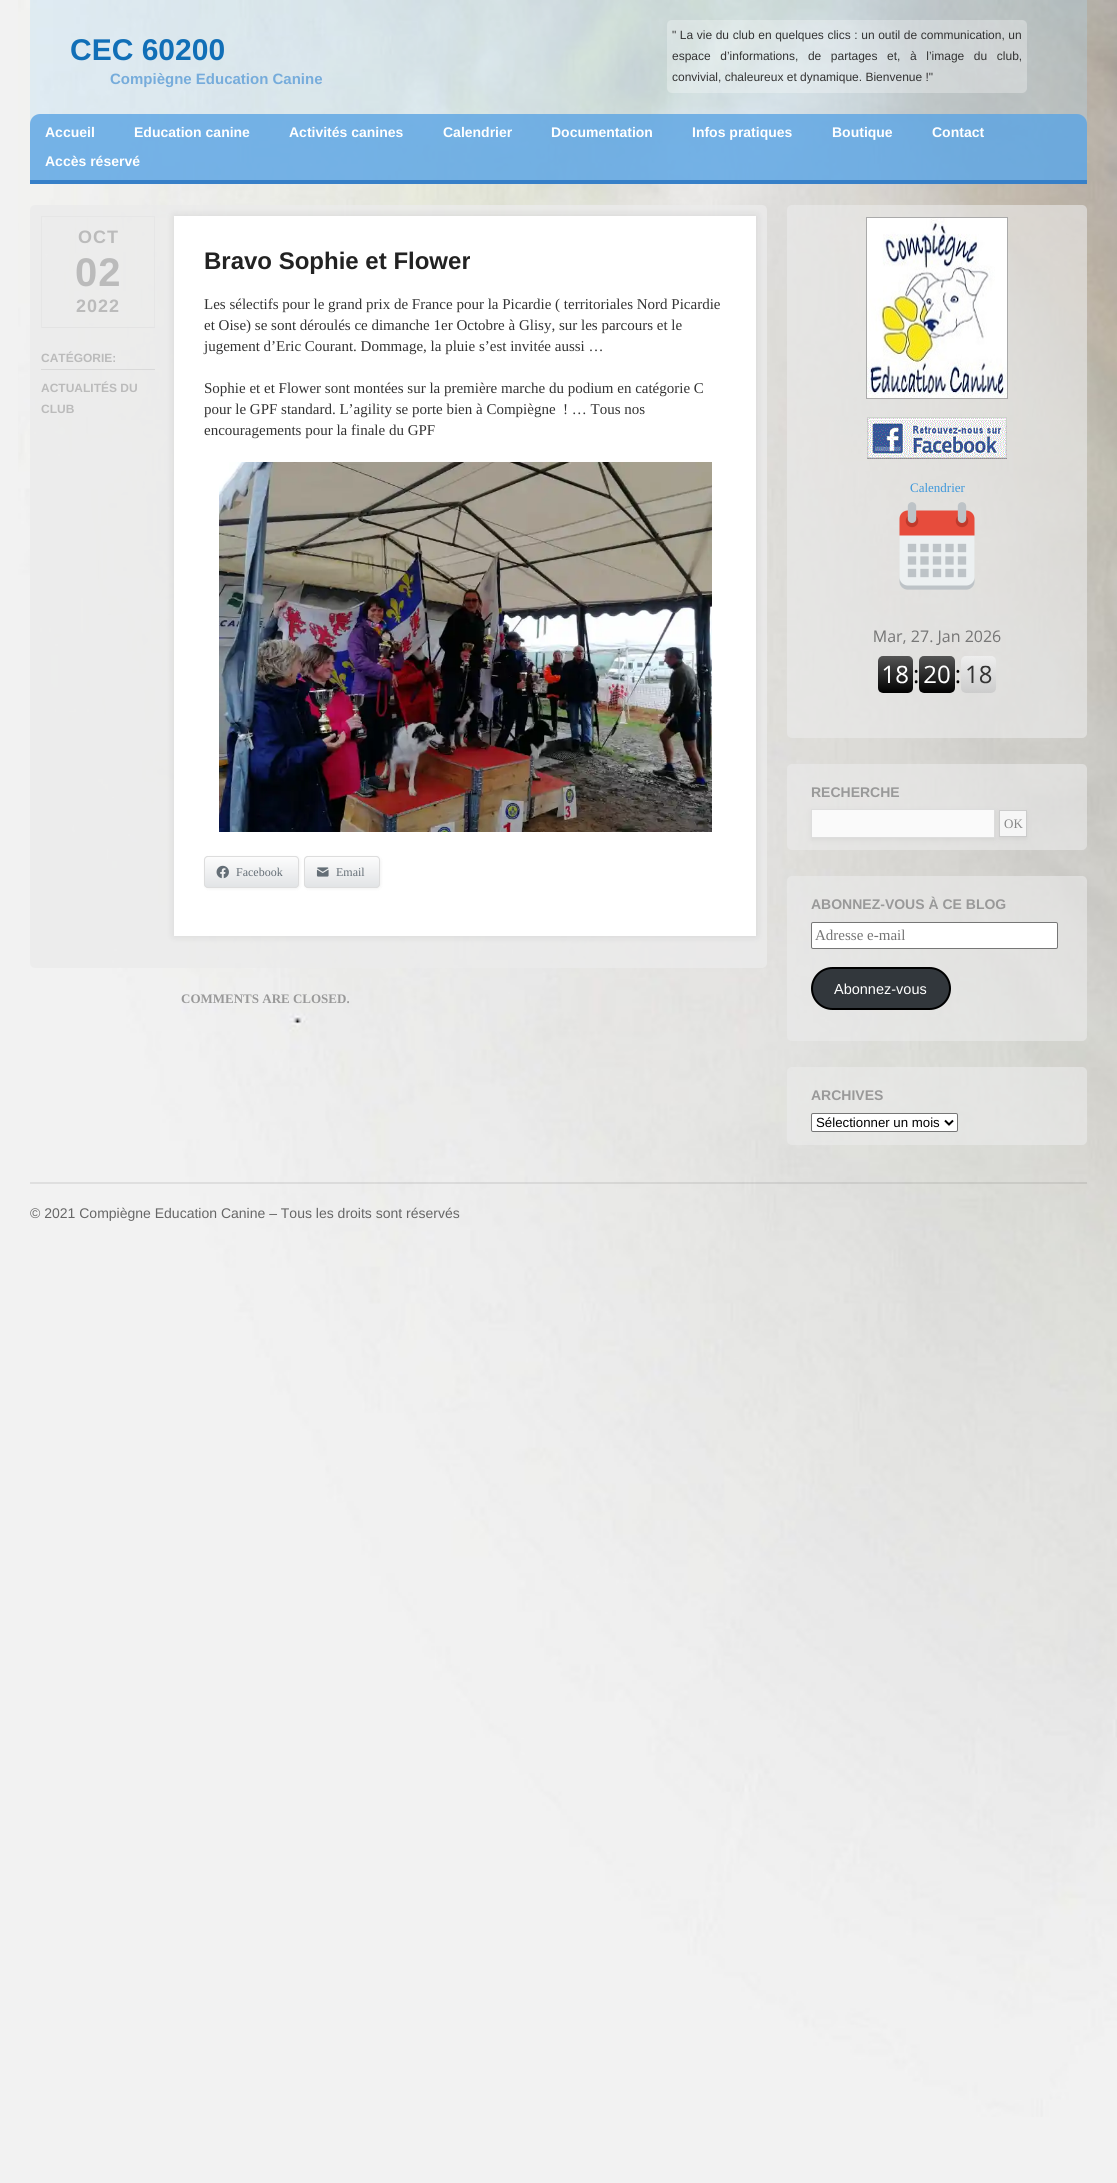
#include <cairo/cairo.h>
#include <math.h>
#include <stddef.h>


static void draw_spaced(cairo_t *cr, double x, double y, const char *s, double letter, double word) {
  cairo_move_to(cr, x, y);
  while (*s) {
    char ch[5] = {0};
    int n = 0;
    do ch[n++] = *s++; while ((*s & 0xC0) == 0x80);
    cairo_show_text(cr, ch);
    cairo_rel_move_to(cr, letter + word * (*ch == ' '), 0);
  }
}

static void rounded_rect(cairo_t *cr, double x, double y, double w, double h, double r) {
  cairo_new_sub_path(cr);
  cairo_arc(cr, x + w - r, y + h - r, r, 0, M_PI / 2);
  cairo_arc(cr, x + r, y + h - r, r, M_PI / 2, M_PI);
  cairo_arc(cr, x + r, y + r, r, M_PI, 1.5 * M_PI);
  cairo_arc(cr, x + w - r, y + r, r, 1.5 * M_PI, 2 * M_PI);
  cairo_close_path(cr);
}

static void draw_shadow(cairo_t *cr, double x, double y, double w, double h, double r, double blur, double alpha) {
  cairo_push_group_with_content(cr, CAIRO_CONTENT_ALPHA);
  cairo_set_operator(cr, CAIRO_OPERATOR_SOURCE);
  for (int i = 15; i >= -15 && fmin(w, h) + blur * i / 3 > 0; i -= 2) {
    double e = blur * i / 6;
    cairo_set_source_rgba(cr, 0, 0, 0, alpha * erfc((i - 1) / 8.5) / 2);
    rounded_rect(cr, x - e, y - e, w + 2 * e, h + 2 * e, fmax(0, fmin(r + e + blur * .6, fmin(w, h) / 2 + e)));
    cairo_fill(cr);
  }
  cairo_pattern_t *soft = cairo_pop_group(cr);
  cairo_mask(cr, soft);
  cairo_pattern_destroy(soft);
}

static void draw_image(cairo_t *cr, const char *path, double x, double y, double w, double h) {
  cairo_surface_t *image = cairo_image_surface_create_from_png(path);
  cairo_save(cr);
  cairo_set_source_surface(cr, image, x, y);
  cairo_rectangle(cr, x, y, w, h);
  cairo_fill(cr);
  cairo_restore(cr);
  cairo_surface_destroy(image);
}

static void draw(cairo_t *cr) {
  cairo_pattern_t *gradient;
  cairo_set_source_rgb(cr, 242 / 255.0, 242 / 255.0, 242 / 255.0);
  cairo_paint(cr);
  draw_image(cr, "images/1.png", 18, 0, 1099, 2117);
  cairo_set_source_rgba(cr, 178 / 255.0, 216 / 255.0, 243 / 255.0, 0.3);
  cairo_rectangle(cr, 30, 0, 1057, 180);
  cairo_fill(cr);
  cairo_set_source_rgb(cr, 55 / 255.0, 128 / 255.0, 200 / 255.0);
  cairo_rectangle(cr, 30, 180, 1057, 4);
  cairo_fill(cr);
  cairo_set_source_rgba(cr, 1, 1, 1, 0.3);
  rounded_rect(cr, 667, 20, 360, 73, 5);
  cairo_fill(cr);
  cairo_set_source_rgba(cr, 90 / 255.0, 164 / 255.0, 227 / 255.0, 0.8);
  cairo_new_path(cr);
  cairo_move_to(cr, 40, 114);
  cairo_line_to(cr, 1077, 114);
  cairo_curve_to(cr, 1082.5, 114, 1087, 118.5, 1087, 124);
  cairo_line_to(cr, 1087, 180);
  cairo_line_to(cr, 30, 180);
  cairo_line_to(cr, 30, 124);
  cairo_curve_to(cr, 30, 118.5, 34.5, 114, 40, 114);
  cairo_close_path(cr);
  cairo_fill(cr);
  cairo_set_source_rgba(cr, 235 / 255.0, 235 / 255.0, 235 / 255.0, 0.8);
  rounded_rect(cr, 30, 205, 737, 763, 5);
  cairo_fill(cr);
  cairo_set_source_rgb(cr, 230 / 255.0, 230 / 255.0, 230 / 255.0);
  cairo_rectangle(cr, 41, 216, 114, 1);
  cairo_fill(cr);
  cairo_rectangle(cr, 154, 216, 1, 112);
  cairo_fill(cr);
  cairo_set_source_rgb(cr, 227 / 255.0, 227 / 255.0, 227 / 255.0);
  cairo_rectangle(cr, 41, 327, 114, 1);
  cairo_fill(cr);
  cairo_set_source_rgb(cr, 230 / 255.0, 230 / 255.0, 230 / 255.0);
  cairo_rectangle(cr, 41, 216, 1, 112);
  cairo_fill(cr);
  cairo_set_source_rgb(cr, 217 / 255.0, 217 / 255.0, 217 / 255.0);
  cairo_rectangle(cr, 41, 369, 114, 1);
  cairo_fill(cr);
  cairo_set_source_rgb(cr, 0, 0, 0);
  draw_shadow(cr, 174, 216, 582, 720, 0, 4, 0.1);
  cairo_set_source_rgb(cr, 1, 1, 1);
  cairo_rectangle(cr, 174, 216, 582, 720);
  cairo_fill(cr);
  draw_image(cr, "images/2.png", 219, 462, 493, 370);
  cairo_set_source_rgb(cr, 0, 0, 0);
  draw_shadow(cr, 205, 857, 95, 32, 4, 1.5, 0.05);
  cairo_set_source_rgb(cr, 226 / 255.0, 228 / 255.0, 230 / 255.0);
  rounded_rect(cr, 204, 856, 95, 32, 4);
  cairo_fill(cr);
  cairo_save(cr);
  rounded_rect(cr, 204, 856, 95, 32, 4);
  cairo_clip(cr);
  gradient = cairo_pattern_create_linear(252, 857, 252, 887);
  cairo_pattern_add_color_stop_rgba(gradient, 0, 1, 1, 1, 0.9);
  cairo_pattern_add_color_stop_rgba(gradient, 1, 1, 1, 1, 0);
  cairo_set_source(cr, gradient);
  cairo_pattern_destroy(gradient);
  cairo_rectangle(cr, 204, 857, 95, 29);
  cairo_fill(cr);
  cairo_restore(cr);
  rounded_rect(cr, 204.5, 856.5, 94, 31, 3.5);
  cairo_set_source_rgb(cr, 221 / 255.0, 221 / 255.0, 221 / 255.0);
  cairo_set_line_width(cr, 1);
  cairo_stroke(cr);
  draw_image(cr, "images/3.png", 216, 865, 13, 14);
  cairo_set_source_rgb(cr, 0, 0, 0);
  draw_shadow(cr, 305, 857, 76, 32, 4, 1.5, 0.05);
  cairo_set_source_rgb(cr, 226 / 255.0, 228 / 255.0, 230 / 255.0);
  rounded_rect(cr, 304, 856, 76, 32, 4);
  cairo_fill(cr);
  cairo_save(cr);
  rounded_rect(cr, 304, 856, 76, 32, 4);
  cairo_clip(cr);
  gradient = cairo_pattern_create_linear(342, 857, 342, 887);
  cairo_pattern_add_color_stop_rgba(gradient, 0, 1, 1, 1, 0.9);
  cairo_pattern_add_color_stop_rgba(gradient, 1, 1, 1, 1, 0);
  cairo_set_source(cr, gradient);
  cairo_pattern_destroy(gradient);
  cairo_rectangle(cr, 304, 857, 76, 29);
  cairo_fill(cr);
  cairo_restore(cr);
  rounded_rect(cr, 304.5, 856.5, 75, 31, 3.5);
  cairo_set_source_rgb(cr, 221 / 255.0, 221 / 255.0, 221 / 255.0);
  cairo_stroke(cr);
  draw_image(cr, "images/4.png", 316, 867, 13, 10);
  cairo_set_source_rgba(cr, 235 / 255.0, 235 / 255.0, 235 / 255.0, 0.6);
  rounded_rect(cr, 787, 205, 300, 533, 5);
  cairo_fill(cr);
  cairo_rectangle(cr, 866.5, 217.5, 141, 181);
  cairo_set_source_rgb(cr, 170 / 255.0, 170 / 255.0, 170 / 255.0);
  cairo_stroke(cr);
  draw_image(cr, "images/5.png", 867, 218, 140, 180);
  draw_image(cr, "images/6.png", 867, 417, 140, 42);
  draw_image(cr, "images/7.png", 899, 502, 76, 88);
  draw_image(cr, "images/8.png", 874, 630, 127, 63);
  cairo_set_source_rgba(cr, 235 / 255.0, 235 / 255.0, 235 / 255.0, 0.6);
  rounded_rect(cr, 787, 764, 300, 86, 5);
  cairo_fill(cr);
  cairo_set_source_rgb(cr, 100 / 255.0, 100 / 255.0, 100 / 255.0);
  draw_shadow(cr, 811, 811, 184, 29, 0, 2.5, 0.1);
  cairo_set_source_rgb(cr, 250 / 255.0, 250 / 255.0, 250 / 255.0);
  cairo_rectangle(cr, 811.5, 809.5, 183, 28);
  cairo_fill_preserve(cr);
  cairo_set_source_rgb(cr, 221 / 255.0, 221 / 255.0, 221 / 255.0);
  cairo_stroke(cr);
  cairo_set_source_rgb(cr, 100 / 255.0, 100 / 255.0, 100 / 255.0);
  draw_shadow(cr, 999, 812, 28, 27, 0, 2.5, 0.1);
  cairo_set_source_rgb(cr, 246 / 255.0, 246 / 255.0, 246 / 255.0);
  cairo_rectangle(cr, 999.5, 810.5, 27, 26);
  cairo_fill_preserve(cr);
  cairo_set_source_rgb(cr, 204 / 255.0, 204 / 255.0, 204 / 255.0);
  cairo_stroke(cr);
  cairo_set_source_rgba(cr, 235 / 255.0, 235 / 255.0, 235 / 255.0, 0.6);
  rounded_rect(cr, 787, 876, 300, 165, 5);
  cairo_fill(cr);
  cairo_set_source_rgb(cr, 1, 1, 1);
  rounded_rect(cr, 811.5, 922.5, 246, 26, 1.5);
  cairo_fill_preserve(cr);
  cairo_set_source_rgb(cr, 118 / 255.0, 118 / 255.0, 118 / 255.0);
  cairo_stroke(cr);
  cairo_set_source_rgb(cr, 50 / 255.0, 55 / 255.0, 60 / 255.0);
  rounded_rect(cr, 812, 968, 138, 41, 20.5);
  cairo_fill_preserve(cr);
  cairo_set_source_rgb(cr, 0, 0, 0);
  cairo_set_line_width(cr, 2);
  cairo_stroke(cr);
  cairo_set_source_rgba(cr, 235 / 255.0, 235 / 255.0, 235 / 255.0, 0.6);
  rounded_rect(cr, 787, 1067, 300, 78, 5);
  cairo_fill(cr);
  cairo_set_source_rgb(cr, 1, 1, 1);
  rounded_rect(cr, 811.5, 1113.5, 146, 18, 1.5);
  cairo_fill_preserve(cr);
  cairo_set_source_rgb(cr, 118 / 255.0, 118 / 255.0, 118 / 255.0);
  cairo_set_line_width(cr, 1);
  cairo_stroke(cr);
  cairo_new_path(cr);
  cairo_move_to(cr, 945, 1120.5);
  cairo_line_to(cr, 949, 1124.5);
  cairo_line_to(cr, 953, 1120.5);
  cairo_set_source_rgb(cr, 0, 0, 0);
  cairo_set_line_width(cr, 2);
  cairo_stroke(cr);
  cairo_set_source_rgba(cr, 0, 0, 0, 0.08);
  cairo_rectangle(cr, 30, 1182, 1057, 2);
  cairo_fill(cr);
  cairo_select_font_face(cr, "Liberation Sans", CAIRO_FONT_SLANT_NORMAL, CAIRO_FONT_WEIGHT_BOLD);
  cairo_set_font_size(cr, 30);
  cairo_set_source_rgb(cr, 17 / 255.0, 111 / 255.0, 183 / 255.0);
  cairo_move_to(cr, 70, 60);
  cairo_show_text(cr, "CEC 60200");
  cairo_set_font_size(cr, 15);
  cairo_set_source_rgb(cr, 118 / 255.0, 172 / 255.0, 219 / 255.0);
  cairo_move_to(cr, 110, 84);
  cairo_show_text(cr, "Compiègne Education Canine");
  cairo_select_font_face(cr, "Liberation Sans", CAIRO_FONT_SLANT_NORMAL, CAIRO_FONT_WEIGHT_NORMAL);
  cairo_set_font_size(cr, 12);
  cairo_set_source_rgb(cr, 51 / 255.0, 51 / 255.0, 51 / 255.0);
  draw_spaced(cr, 672, 39, "\" La vie du club en quelques clics : un outil de communication, un", 0, 0.25);
  draw_spaced(cr, 672, 60, "espace d’informations, de partages et, à l’image du club,", 0, 6.25);
  cairo_move_to(cr, 672, 81);
  cairo_show_text(cr, "convivial, chaleureux et dynamique. Bienvenue !\"");
  cairo_select_font_face(cr, "Liberation Sans", CAIRO_FONT_SLANT_NORMAL, CAIRO_FONT_WEIGHT_BOLD);
  cairo_set_font_size(cr, 14);
  cairo_set_source_rgb(cr, 1, 1, 1);
  cairo_move_to(cr, 45, 137);
  cairo_show_text(cr, "Accueil");
  cairo_move_to(cr, 134, 137);
  cairo_show_text(cr, "Education canine");
  cairo_move_to(cr, 289, 137);
  cairo_show_text(cr, "Activités canines");
  cairo_move_to(cr, 443, 137);
  cairo_show_text(cr, "Calendrier");
  cairo_move_to(cr, 551, 137);
  cairo_show_text(cr, "Documentation");
  cairo_move_to(cr, 692, 137);
  cairo_show_text(cr, "Infos pratiques");
  cairo_move_to(cr, 832, 137);
  cairo_show_text(cr, "Boutique");
  cairo_move_to(cr, 932, 137);
  cairo_show_text(cr, "Contact");
  cairo_move_to(cr, 45, 166);
  cairo_show_text(cr, "Accès réservé");
  cairo_set_font_size(cr, 18);
  cairo_set_source_rgb(cr, 187 / 255.0, 187 / 255.0, 187 / 255.0);
  draw_spaced(cr, 78, 243, "OCT", 1, 0);
  cairo_set_font_size(cr, 40);
  draw_spaced(cr, 75, 286, "02", 1, 0);
  cairo_set_font_size(cr, 18);
  draw_spaced(cr, 76, 312, "2022", 1, 0);
  cairo_set_font_size(cr, 12);
  cairo_move_to(cr, 41, 362);
  cairo_show_text(cr, "CATÉGORIE:");
  cairo_move_to(cr, 41, 392);
  cairo_show_text(cr, "ACTUALITÉS DU");
  cairo_move_to(cr, 41, 413);
  cairo_show_text(cr, "CLUB");
  cairo_set_font_size(cr, 24);
  cairo_set_source_rgb(cr, 34 / 255.0, 34 / 255.0, 34 / 255.0);
  cairo_move_to(cr, 204, 269);
  cairo_show_text(cr, "Bravo Sophie et Flower");
  cairo_select_font_face(cr, "Liberation Serif", CAIRO_FONT_SLANT_NORMAL, CAIRO_FONT_WEIGHT_NORMAL);
  cairo_set_font_size(cr, 15);
  cairo_set_source_rgb(cr, 51 / 255.0, 51 / 255.0, 51 / 255.0);
  cairo_move_to(cr, 204, 309);
  cairo_show_text(cr, "Les sélectifs pour le grand prix de France pour la Picardie ( territoriales Nord Picardie");
  cairo_move_to(cr, 204, 330);
  cairo_show_text(cr, "et Oise) se sont déroulés ce dimanche 1er Octobre à Glisy, sur les parcours et le");
  cairo_move_to(cr, 204, 351);
  cairo_show_text(cr, "jugement d’Eric Courant. Dommage, la pluie s’est invitée aussi …");
  cairo_move_to(cr, 204, 393);
  cairo_show_text(cr, "Sophie et et Flower sont montées sur la première marche du podium en catégorie C");
  cairo_move_to(cr, 204, 414);
  cairo_show_text(cr, "pour le GPF standard. L’agility se porte bien à Compiègne  ! … Tous nos");
  cairo_move_to(cr, 204, 435);
  cairo_show_text(cr, "encouragements pour la finale du GPF");
  cairo_set_font_size(cr, 12);
  cairo_set_source_rgb(cr, 100 / 255.0, 110 / 255.0, 118 / 255.0);
  cairo_move_to(cr, 236, 876);
  cairo_show_text(cr, "Facebook");
  cairo_move_to(cr, 336, 876);
  cairo_show_text(cr, "Email");
  cairo_select_font_face(cr, "Liberation Serif", CAIRO_FONT_SLANT_NORMAL, CAIRO_FONT_WEIGHT_BOLD);
  cairo_set_font_size(cr, 13);
  cairo_set_source_rgb(cr, 153 / 255.0, 153 / 255.0, 153 / 255.0);
  cairo_move_to(cr, 181, 1003);
  cairo_show_text(cr, "COMMENTS ARE CLOSED.");
  cairo_select_font_face(cr, "Liberation Serif", CAIRO_FONT_SLANT_NORMAL, CAIRO_FONT_WEIGHT_NORMAL);
  cairo_set_source_rgb(cr, 63 / 255.0, 152 / 255.0, 219 / 255.0);
  cairo_move_to(cr, 910, 492);
  cairo_show_text(cr, "Calendrier");
  cairo_select_font_face(cr, "Liberation Sans", CAIRO_FONT_SLANT_NORMAL, CAIRO_FONT_WEIGHT_BOLD);
  cairo_set_font_size(cr, 14);
  cairo_set_source_rgb(cr, 153 / 255.0, 153 / 255.0, 153 / 255.0);
  cairo_move_to(cr, 811, 797);
  cairo_show_text(cr, "RECHERCHE");
  cairo_select_font_face(cr, "Liberation Serif", CAIRO_FONT_SLANT_NORMAL, CAIRO_FONT_WEIGHT_NORMAL);
  cairo_set_font_size(cr, 13);
  cairo_set_source_rgb(cr, 136 / 255.0, 136 / 255.0, 136 / 255.0);
  cairo_move_to(cr, 1004, 828);
  cairo_show_text(cr, "OK");
  cairo_select_font_face(cr, "Liberation Sans", CAIRO_FONT_SLANT_NORMAL, CAIRO_FONT_WEIGHT_BOLD);
  cairo_set_font_size(cr, 14);
  cairo_set_source_rgb(cr, 153 / 255.0, 153 / 255.0, 153 / 255.0);
  cairo_move_to(cr, 811, 909);
  cairo_show_text(cr, "ABONNEZ-VOUS À CE BLOG");
  cairo_select_font_face(cr, "Liberation Serif", CAIRO_FONT_SLANT_NORMAL, CAIRO_FONT_WEIGHT_NORMAL);
  cairo_set_font_size(cr, 15);
  cairo_set_source_rgb(cr, 117 / 255.0, 117 / 255.0, 117 / 255.0);
  cairo_move_to(cr, 815, 940);
  cairo_show_text(cr, "Adresse e-mail");
  cairo_select_font_face(cr, "Liberation Sans", CAIRO_FONT_SLANT_NORMAL, CAIRO_FONT_WEIGHT_NORMAL);
  cairo_set_font_size(cr, 14.5);
  cairo_set_source_rgb(cr, 1, 1, 1);
  cairo_move_to(cr, 834, 994);
  cairo_show_text(cr, "Abonnez-vous");
  cairo_select_font_face(cr, "Liberation Sans", CAIRO_FONT_SLANT_NORMAL, CAIRO_FONT_WEIGHT_BOLD);
  cairo_set_font_size(cr, 14);
  cairo_set_source_rgb(cr, 153 / 255.0, 153 / 255.0, 153 / 255.0);
  cairo_move_to(cr, 811, 1100);
  cairo_show_text(cr, "ARCHIVES");
  cairo_select_font_face(cr, "Liberation Sans", CAIRO_FONT_SLANT_NORMAL, CAIRO_FONT_WEIGHT_NORMAL);
  cairo_set_font_size(cr, 13.25);
  cairo_set_source_rgb(cr, 0, 0, 0);
  cairo_move_to(cr, 816, 1127);
  cairo_show_text(cr, "Sélectionner un mois");
  cairo_set_font_size(cr, 14);
  cairo_set_source_rgb(cr, 102 / 255.0, 102 / 255.0, 102 / 255.0);
  cairo_move_to(cr, 30, 1218);
  cairo_show_text(cr, "© 2021 Compiègne Education Canine – Tous les droits sont réservés");
}

int main(void) {
  cairo_surface_t *surface = cairo_image_surface_create(CAIRO_FORMAT_RGB24, 1117, 2183);
  cairo_t *cr = cairo_create(surface);
  cairo_font_options_t *options = cairo_font_options_create();
  cairo_font_options_set_hint_metrics(options, CAIRO_HINT_METRICS_OFF);
  cairo_font_options_set_hint_style(options, CAIRO_HINT_STYLE_NONE);
  cairo_set_font_options(cr, options);
  cairo_set_miter_limit(cr, 4);
  draw(cr);
  cairo_surface_write_to_png(surface, "out.png");
  cairo_font_options_destroy(options);
  cairo_destroy(cr);
  cairo_surface_destroy(surface);
  return 0;
}
